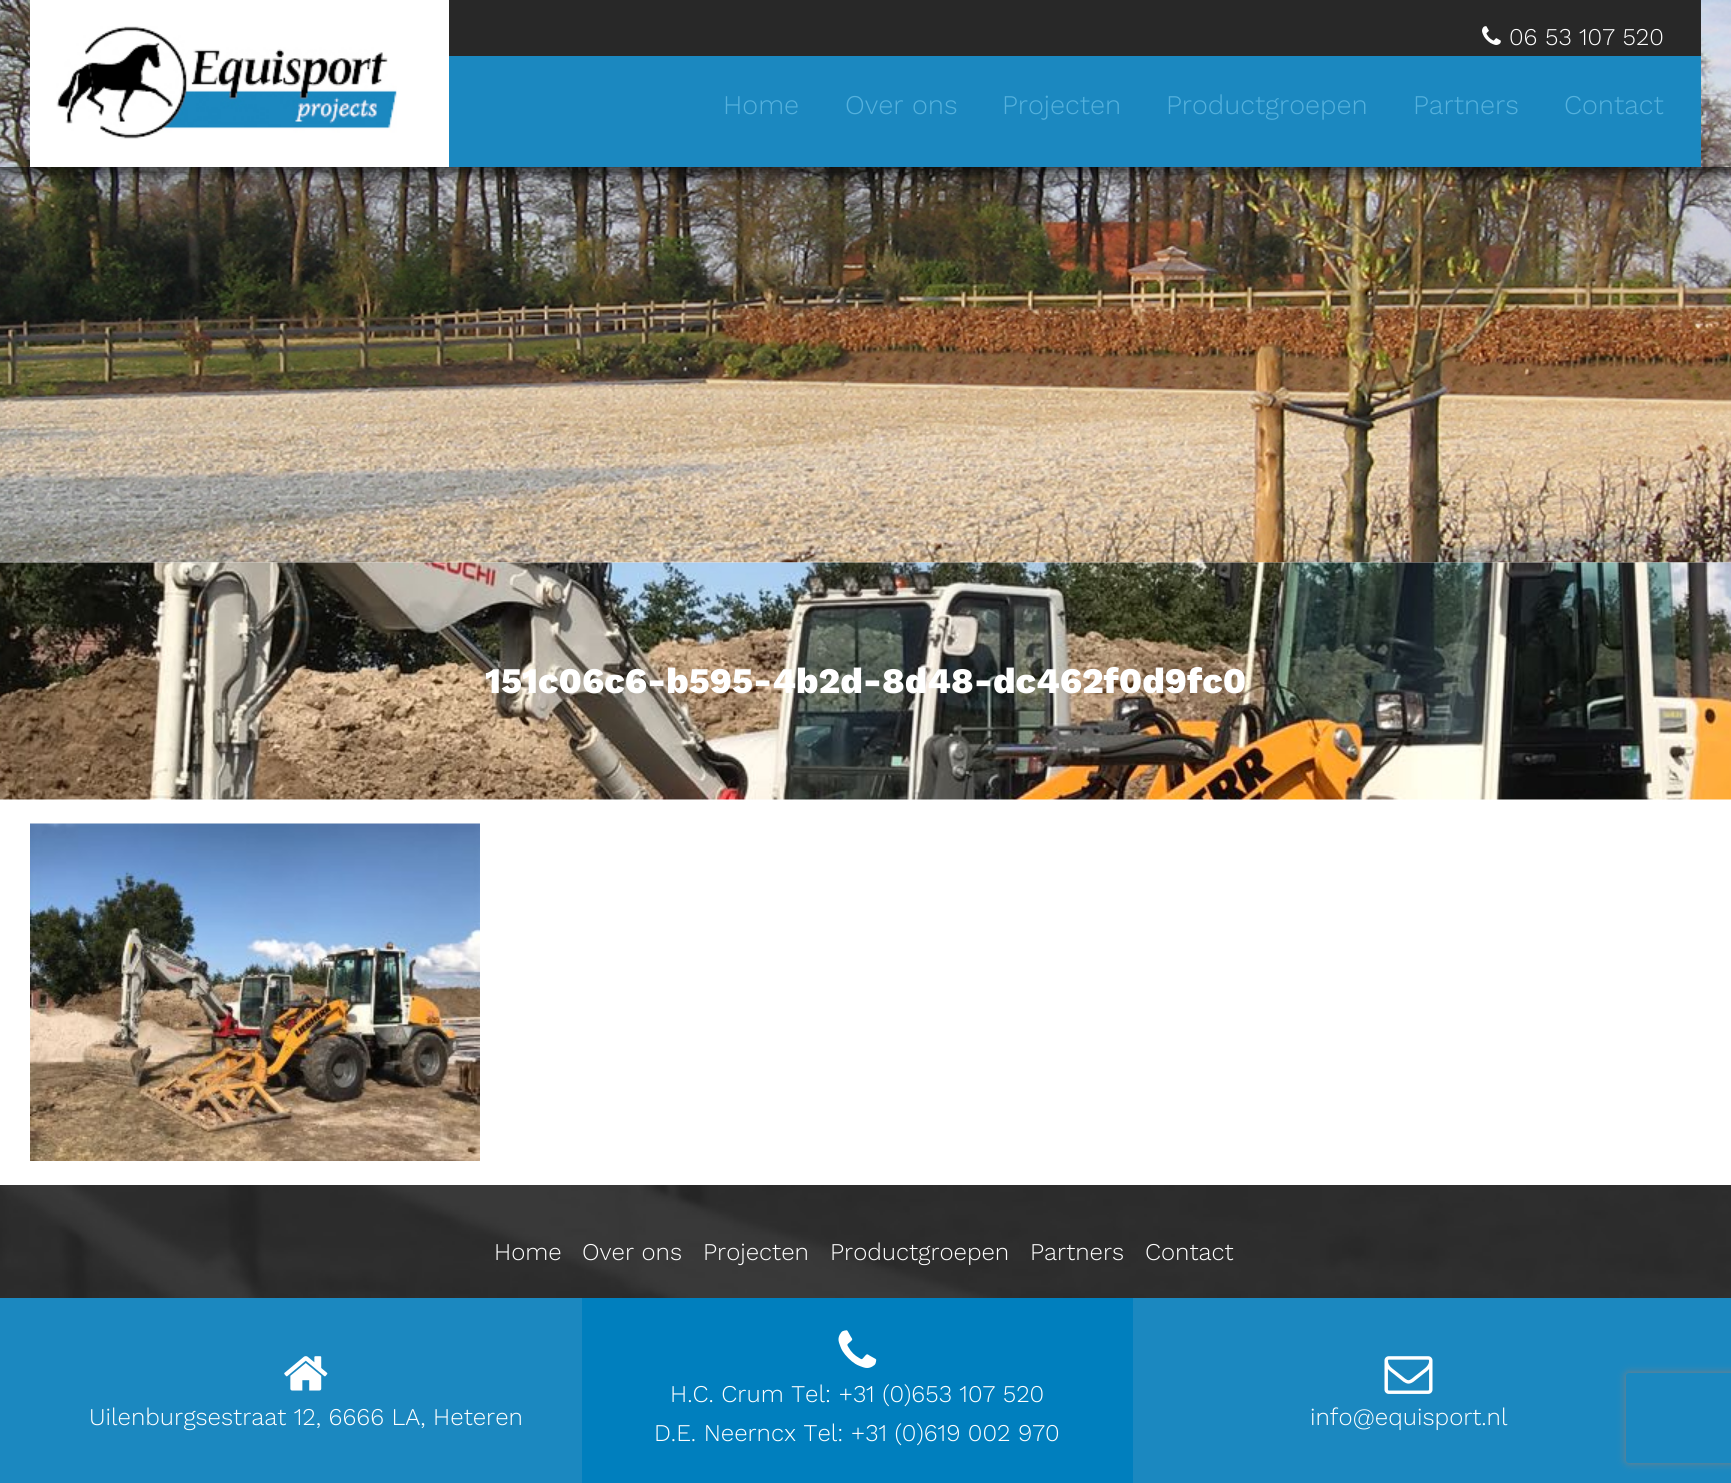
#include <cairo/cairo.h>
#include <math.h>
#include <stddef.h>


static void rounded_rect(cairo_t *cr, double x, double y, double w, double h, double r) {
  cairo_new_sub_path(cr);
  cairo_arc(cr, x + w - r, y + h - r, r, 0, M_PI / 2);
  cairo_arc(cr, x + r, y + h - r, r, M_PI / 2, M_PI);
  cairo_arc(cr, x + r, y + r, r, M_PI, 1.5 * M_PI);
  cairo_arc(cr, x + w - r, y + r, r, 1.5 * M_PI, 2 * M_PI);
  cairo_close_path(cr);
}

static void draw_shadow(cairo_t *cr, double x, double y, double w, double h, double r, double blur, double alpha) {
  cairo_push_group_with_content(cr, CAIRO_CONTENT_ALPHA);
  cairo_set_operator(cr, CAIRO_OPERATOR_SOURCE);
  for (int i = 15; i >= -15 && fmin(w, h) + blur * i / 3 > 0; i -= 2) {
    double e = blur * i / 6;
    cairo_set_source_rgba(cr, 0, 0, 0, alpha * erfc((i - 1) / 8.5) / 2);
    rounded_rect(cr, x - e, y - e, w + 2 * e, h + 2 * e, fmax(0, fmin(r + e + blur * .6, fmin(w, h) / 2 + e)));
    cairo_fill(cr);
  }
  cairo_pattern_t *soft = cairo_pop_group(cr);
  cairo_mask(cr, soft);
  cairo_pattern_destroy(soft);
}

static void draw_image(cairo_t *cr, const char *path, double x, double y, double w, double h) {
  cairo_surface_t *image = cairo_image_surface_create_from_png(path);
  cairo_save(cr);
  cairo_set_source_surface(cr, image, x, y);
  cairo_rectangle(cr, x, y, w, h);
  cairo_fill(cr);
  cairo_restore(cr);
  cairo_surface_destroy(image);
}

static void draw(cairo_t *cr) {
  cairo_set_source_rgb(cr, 1, 1, 1);
  cairo_paint(cr);
  draw_image(cr, "images/1.png", 0, 0, 1731, 563);
  cairo_save(cr);
  cairo_set_fill_rule(cr, CAIRO_FILL_RULE_EVEN_ODD);
  cairo_new_path(cr);
  cairo_move_to(cr, 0, 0);
  cairo_line_to(cr, 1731, 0);
  cairo_line_to(cr, 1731, 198);
  cairo_line_to(cr, 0, 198);
  cairo_close_path(cr);
  cairo_move_to(cr, 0, 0);
  cairo_line_to(cr, 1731, 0);
  cairo_line_to(cr, 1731, 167);
  cairo_line_to(cr, 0, 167);
  cairo_close_path(cr);
  cairo_clip(cr);
  cairo_set_source_rgb(cr, 0, 0, 0);
  draw_shadow(cr, -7, -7, 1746, 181, 0, 7.5, 0.75);
  cairo_restore(cr);
  cairo_set_source_rgb(cr, 1, 1, 1);
  cairo_rectangle(cr, 30, 0, 419, 167);
  cairo_fill(cr);
  draw_image(cr, "images/2.png", 56, 26, 341, 113);
  cairo_set_source_rgb(cr, 27 / 255.0, 136 / 255.0, 192 / 255.0);
  cairo_rectangle(cr, 449, 56, 1252, 111);
  cairo_fill(cr);
  cairo_set_source_rgb(cr, 40 / 255.0, 40 / 255.0, 40 / 255.0);
  cairo_rectangle(cr, 449, 0, 1252, 56);
  cairo_fill(cr);
  draw_image(cr, "images/3.png", 1482, 26, 19, 19);
  draw_image(cr, "images/4.png", 0, 562, 1731, 238);
  draw_image(cr, "images/5.png", 30, 823, 450, 338);
  draw_image(cr, "images/6.png", 0, 1185, 1731, 113);
  cairo_set_source_rgb(cr, 27 / 255.0, 136 / 255.0, 192 / 255.0);
  cairo_rectangle(cr, 0, 1298, 1731, 185);
  cairo_fill(cr);
  draw_image(cr, "images/7.png", 284, 1356, 44, 35);
  cairo_set_source_rgb(cr, 0, 127 / 255.0, 190 / 255.0);
  cairo_rectangle(cr, 582, 1298, 551, 185);
  cairo_fill(cr);
  draw_image(cr, "images/8.png", 838, 1330, 39, 38);
  draw_image(cr, "images/9.png", 1384, 1356, 49, 38);
  cairo_save(cr);
  cairo_set_fill_rule(cr, CAIRO_FILL_RULE_EVEN_ODD);
  cairo_new_path(cr);
  cairo_move_to(cr, 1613, 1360);
  cairo_line_to(cr, 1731, 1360);
  cairo_line_to(cr, 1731, 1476);
  cairo_line_to(cr, 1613, 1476);
  cairo_close_path(cr);
  cairo_move_to(cr, 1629, 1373);
  cairo_line_to(cr, 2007, 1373);
  cairo_curve_to(cr, 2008.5, 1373, 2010, 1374.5, 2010, 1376);
  cairo_line_to(cr, 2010, 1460);
  cairo_curve_to(cr, 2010, 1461.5, 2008.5, 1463, 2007, 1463);
  cairo_line_to(cr, 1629, 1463);
  cairo_curve_to(cr, 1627.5, 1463, 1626, 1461.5, 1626, 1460);
  cairo_line_to(cr, 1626, 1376);
  cairo_curve_to(cr, 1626, 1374.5, 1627.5, 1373, 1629, 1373);
  cairo_close_path(cr);
  cairo_clip(cr);
  cairo_set_source_rgb(cr, 128 / 255.0, 128 / 255.0, 128 / 255.0);
  draw_shadow(cr, 1626, 1373, 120, 90, 3, 4, 1);
  cairo_restore(cr);
  cairo_select_font_face(cr, "Work Sans Light", CAIRO_FONT_SLANT_NORMAL, CAIRO_FONT_WEIGHT_NORMAL);
  cairo_set_font_size(cr, 24);
  cairo_set_source_rgb(cr, 1, 1, 1);
  cairo_move_to(cr, 1509, 45);
  cairo_show_text(cr, "06 53 107 520");
  cairo_set_font_size(cr, 27);
  cairo_set_source_rgb(cr, 84 / 255.0, 177 / 255.0, 221 / 255.0);
  cairo_move_to(cr, 723, 114);
  cairo_show_text(cr, "Home");
  cairo_move_to(cr, 845, 114);
  cairo_show_text(cr, "Over ons");
  cairo_move_to(cr, 1002, 114);
  cairo_show_text(cr, "Projecten");
  cairo_move_to(cr, 1166, 114);
  cairo_show_text(cr, "Productgroepen");
  cairo_move_to(cr, 1413, 114);
  cairo_show_text(cr, "Partners");
  cairo_move_to(cr, 1564, 114);
  cairo_show_text(cr, "Contact");
  cairo_select_font_face(cr, "Work Sans ExtraBold", CAIRO_FONT_SLANT_NORMAL, CAIRO_FONT_WEIGHT_NORMAL);
  cairo_set_font_size(cr, 36);
  cairo_set_source_rgb(cr, 1, 1, 1);
  cairo_move_to(cr, 485, 693);
  cairo_show_text(cr, "151c06c6-b595-4b2d-8d48-dc462f0d9fc0");
  cairo_select_font_face(cr, "Work Sans Light", CAIRO_FONT_SLANT_NORMAL, CAIRO_FONT_WEIGHT_NORMAL);
  cairo_set_font_size(cr, 24);
  cairo_move_to(cr, 494, 1260);
  cairo_show_text(cr, "Home");
  cairo_move_to(cr, 582, 1260);
  cairo_show_text(cr, "Over ons");
  cairo_move_to(cr, 703, 1260);
  cairo_show_text(cr, "Projecten");
  cairo_move_to(cr, 830, 1260);
  cairo_show_text(cr, "Productgroepen");
  cairo_move_to(cr, 1030, 1260);
  cairo_show_text(cr, "Partners");
  cairo_move_to(cr, 1145, 1260);
  cairo_show_text(cr, "Contact");
  cairo_move_to(cr, 89, 1425);
  cairo_show_text(cr, "Uilenburgsestraat 12, 6666 LA, Heteren");
  cairo_move_to(cr, 670, 1402);
  cairo_show_text(cr, "H.C. Crum Tel: +31 (0)653 107 520");
  cairo_move_to(cr, 654, 1441);
  cairo_show_text(cr, "D.E. Neerncx Tel: +31 (0)619 002 970");
  cairo_move_to(cr, 1310, 1425);
  cairo_show_text(cr, "info@equisport.nl");
}

int main(void) {
  cairo_surface_t *surface = cairo_image_surface_create(CAIRO_FORMAT_RGB24, 1731, 1483);
  cairo_t *cr = cairo_create(surface);
  cairo_font_options_t *options = cairo_font_options_create();
  cairo_font_options_set_hint_metrics(options, CAIRO_HINT_METRICS_OFF);
  cairo_font_options_set_hint_style(options, CAIRO_HINT_STYLE_NONE);
  cairo_set_font_options(cr, options);
  cairo_set_miter_limit(cr, 4);
  draw(cr);
  cairo_surface_write_to_png(surface, "out.png");
  cairo_font_options_destroy(options);
  cairo_destroy(cr);
  cairo_surface_destroy(surface);
  return 0;
}
